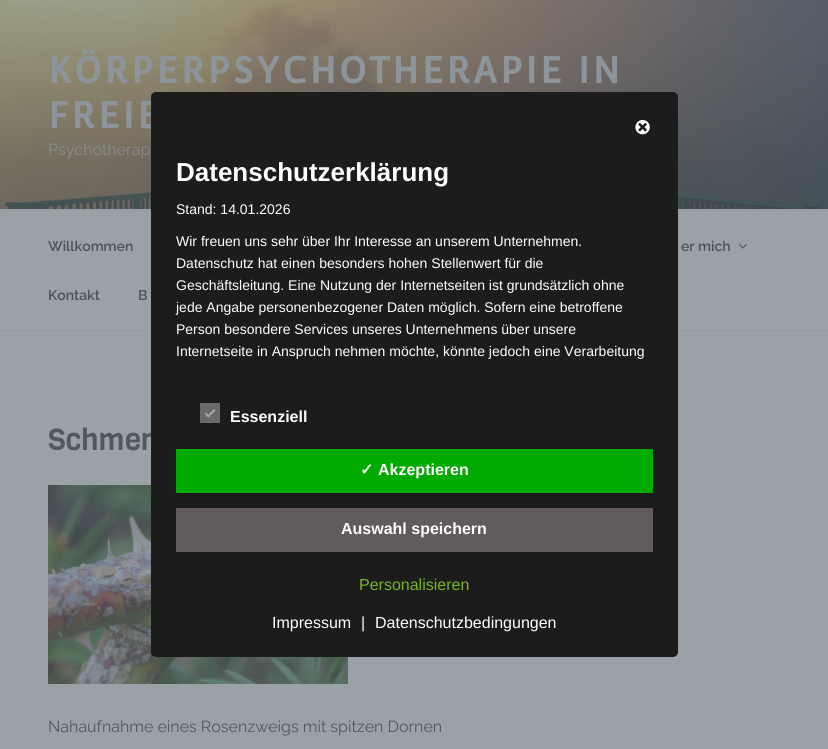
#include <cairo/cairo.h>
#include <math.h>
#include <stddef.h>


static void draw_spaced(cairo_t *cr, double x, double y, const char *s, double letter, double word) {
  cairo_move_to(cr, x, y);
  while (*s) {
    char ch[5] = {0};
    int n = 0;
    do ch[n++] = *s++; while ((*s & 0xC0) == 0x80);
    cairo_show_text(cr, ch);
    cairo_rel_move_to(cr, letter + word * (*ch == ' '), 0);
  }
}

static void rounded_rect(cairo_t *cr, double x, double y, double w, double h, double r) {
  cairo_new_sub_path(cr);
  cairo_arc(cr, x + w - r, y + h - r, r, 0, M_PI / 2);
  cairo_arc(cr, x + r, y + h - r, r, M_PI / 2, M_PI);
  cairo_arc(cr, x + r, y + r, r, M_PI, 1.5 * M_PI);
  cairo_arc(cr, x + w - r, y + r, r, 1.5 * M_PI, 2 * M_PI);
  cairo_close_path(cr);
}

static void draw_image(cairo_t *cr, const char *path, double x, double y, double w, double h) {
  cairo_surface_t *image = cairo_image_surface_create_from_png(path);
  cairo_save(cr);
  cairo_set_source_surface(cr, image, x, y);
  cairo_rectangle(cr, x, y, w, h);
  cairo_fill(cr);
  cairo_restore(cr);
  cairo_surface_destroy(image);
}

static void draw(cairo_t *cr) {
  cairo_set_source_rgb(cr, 155 / 255.0, 162 / 255.0, 167 / 255.0);
  cairo_paint(cr);
  draw_image(cr, "images/1.png", 0, 0, 828, 209);
  cairo_set_source_rgb(cr, 148 / 255.0, 156 / 255.0, 161 / 255.0);
  cairo_rectangle(cr, 0, 210, 828, 1);
  cairo_fill(cr);
  cairo_rectangle(cr, 0, 330, 828, 1);
  cairo_fill(cr);
  draw_image(cr, "images/2.png", 739, 244, 8, 5);
  draw_image(cr, "images/3.png", 48, 485, 300, 199);
  cairo_select_font_face(cr, "Convergence", CAIRO_FONT_SLANT_NORMAL, CAIRO_FONT_WEIGHT_BOLD);
  cairo_set_font_size(cr, 36);
  cairo_set_source_rgb(cr, 142 / 255.0, 149 / 255.0, 154 / 255.0);
  draw_spaced(cr, 48, 83, "KÖRPERPSYCHOTHERAPIE IN", 2.9, 0);
  draw_spaced(cr, 48, 128, "FREIB", 2.9, 0);
  cairo_select_font_face(cr, "Raleway", CAIRO_FONT_SLANT_NORMAL, CAIRO_FONT_WEIGHT_NORMAL);
  cairo_set_font_size(cr, 16);
  cairo_set_source_rgb(cr, 136 / 255.0, 140 / 255.0, 142 / 255.0);
  cairo_move_to(cr, 48, 155);
  cairo_show_text(cr, "Psychotherap");
  cairo_select_font_face(cr, "Raleway SemiBold", CAIRO_FONT_SLANT_NORMAL, CAIRO_FONT_WEIGHT_NORMAL);
  cairo_set_font_size(cr, 14);
  cairo_set_source_rgb(cr, 75 / 255.0, 83 / 255.0, 87 / 255.0);
  cairo_move_to(cr, 48, 251);
  cairo_show_text(cr, "Willkommen");
  cairo_move_to(cr, 681, 251);
  cairo_show_text(cr, "er mich");
  cairo_move_to(cr, 48, 300);
  cairo_show_text(cr, "Kontakt");
  cairo_move_to(cr, 138, 300);
  cairo_show_text(cr, "B");
  cairo_select_font_face(cr, "Viga", CAIRO_FONT_SLANT_NORMAL, CAIRO_FONT_WEIGHT_NORMAL);
  cairo_set_font_size(cr, 30);
  cairo_set_source_rgb(cr, 81 / 255.0, 89 / 255.0, 93 / 255.0);
  cairo_move_to(cr, 48, 450);
  cairo_show_text(cr, "Schmer");
  cairo_select_font_face(cr, "Raleway", CAIRO_FONT_SLANT_NORMAL, CAIRO_FONT_WEIGHT_NORMAL);
  cairo_set_font_size(cr, 16);
  cairo_move_to(cr, 48, 732);
  cairo_show_text(cr, "Nahaufnahme eines Rosenzweigs mit spitzen Dornen");
  cairo_set_source_rgb(cr, 29 / 255.0, 28 / 255.0, 28 / 255.0);
  rounded_rect(cr, 151, 92, 527, 565, 5);
  cairo_fill(cr);
  draw_image(cr, "images/4.png", 635, 120, 15, 15);
  cairo_select_font_face(cr, "Liberation Sans", CAIRO_FONT_SLANT_NORMAL, CAIRO_FONT_WEIGHT_BOLD);
  cairo_set_font_size(cr, 26);
  cairo_set_source_rgb(cr, 1, 1, 1);
  cairo_move_to(cr, 176, 181);
  cairo_show_text(cr, "Datenschutzerklärung");
  cairo_select_font_face(cr, "Liberation Sans", CAIRO_FONT_SLANT_NORMAL, CAIRO_FONT_WEIGHT_NORMAL);
  cairo_set_font_size(cr, 14);
  cairo_move_to(cr, 176, 214);
  cairo_show_text(cr, "Stand: 14.01.2026");
  cairo_move_to(cr, 176, 246);
  cairo_show_text(cr, "Wir freuen uns sehr über Ihr Interesse an unserem Unternehmen.");
  cairo_move_to(cr, 176, 268);
  cairo_show_text(cr, "Datenschutz hat einen besonders hohen Stellenwert für die");
  cairo_move_to(cr, 176, 290);
  cairo_show_text(cr, "Geschäftsleitung. Eine Nutzung der Internetseiten ist grundsätzlich ohne");
  cairo_move_to(cr, 176, 312);
  cairo_show_text(cr, "jede Angabe personenbezogener Daten möglich. Sofern eine betroffene");
  cairo_move_to(cr, 176, 334);
  cairo_show_text(cr, "Person besondere Services unseres Unternehmens über unsere");
  cairo_move_to(cr, 176, 356);
  cairo_show_text(cr, "Internetseite in Anspruch nehmen möchte, könnte jedoch eine Verarbeitung");
  cairo_set_source_rgb(cr, 105 / 255.0, 105 / 255.0, 105 / 255.0);
  cairo_rectangle(cr, 200, 403, 20, 20);
  cairo_fill(cr);
  cairo_set_source_rgb(cr, 165 / 255.0, 164 / 255.0, 164 / 255.0);
  cairo_new_path(cr);
  cairo_move_to(cr, 214, 409);
  cairo_line_to(cr, 215.5, 410.5);
  cairo_line_to(cr, 208.5, 417.5);
  cairo_line_to(cr, 207, 416);
  cairo_close_path(cr);
  cairo_fill(cr);
  cairo_new_path(cr);
  cairo_move_to(cr, 206, 412.5);
  cairo_line_to(cr, 209.5, 416);
  cairo_line_to(cr, 208.5, 417.5);
  cairo_line_to(cr, 204.5, 414);
  cairo_close_path(cr);
  cairo_fill(cr);
  cairo_select_font_face(cr, "Liberation Sans", CAIRO_FONT_SLANT_NORMAL, CAIRO_FONT_WEIGHT_BOLD);
  cairo_set_font_size(cr, 16);
  cairo_set_source_rgb(cr, 1, 1, 1);
  cairo_move_to(cr, 230, 422);
  cairo_show_text(cr, "Essenziell");
  cairo_set_source_rgb(cr, 0, 170 / 255.0, 0);
  cairo_rectangle(cr, 176, 449, 477, 44);
  cairo_fill(cr);
  cairo_select_font_face(cr, "DejaVu Sans", CAIRO_FONT_SLANT_NORMAL, CAIRO_FONT_WEIGHT_BOLD);
  cairo_set_source_rgb(cr, 1, 1, 1);
  cairo_move_to(cr, 360, 475);
  cairo_show_text(cr, "✓");
  cairo_select_font_face(cr, "Liberation Sans", CAIRO_FONT_SLANT_NORMAL, CAIRO_FONT_WEIGHT_BOLD);
  cairo_move_to(cr, 378, 475);
  cairo_show_text(cr, "Akzeptieren");
  cairo_set_source_rgb(cr, 97 / 255.0, 91 / 255.0, 91 / 255.0);
  cairo_rectangle(cr, 176, 508, 477, 44);
  cairo_fill(cr);
  cairo_set_source_rgb(cr, 1, 1, 1);
  cairo_move_to(cr, 341, 534);
  cairo_show_text(cr, "Auswahl speichern");
  cairo_select_font_face(cr, "Liberation Sans", CAIRO_FONT_SLANT_NORMAL, CAIRO_FONT_WEIGHT_NORMAL);
  cairo_set_source_rgb(cr, 121 / 255.0, 181 / 255.0, 31 / 255.0);
  cairo_move_to(cr, 359, 590);
  cairo_show_text(cr, "Personalisieren");
  cairo_set_source_rgb(cr, 1, 1, 1);
  cairo_move_to(cr, 272, 628);
  cairo_show_text(cr, "Impressum");
  cairo_move_to(cr, 361, 628);
  cairo_show_text(cr, "|");
  cairo_move_to(cr, 375, 628);
  cairo_show_text(cr, "Datenschutzbedingungen");
}

int main(void) {
  cairo_surface_t *surface = cairo_image_surface_create(CAIRO_FORMAT_RGB24, 828, 749);
  cairo_t *cr = cairo_create(surface);
  cairo_font_options_t *options = cairo_font_options_create();
  cairo_font_options_set_hint_metrics(options, CAIRO_HINT_METRICS_OFF);
  cairo_font_options_set_hint_style(options, CAIRO_HINT_STYLE_NONE);
  cairo_set_font_options(cr, options);
  cairo_set_miter_limit(cr, 4);
  draw(cr);
  cairo_surface_write_to_png(surface, "out.png");
  cairo_font_options_destroy(options);
  cairo_destroy(cr);
  cairo_surface_destroy(surface);
  return 0;
}
